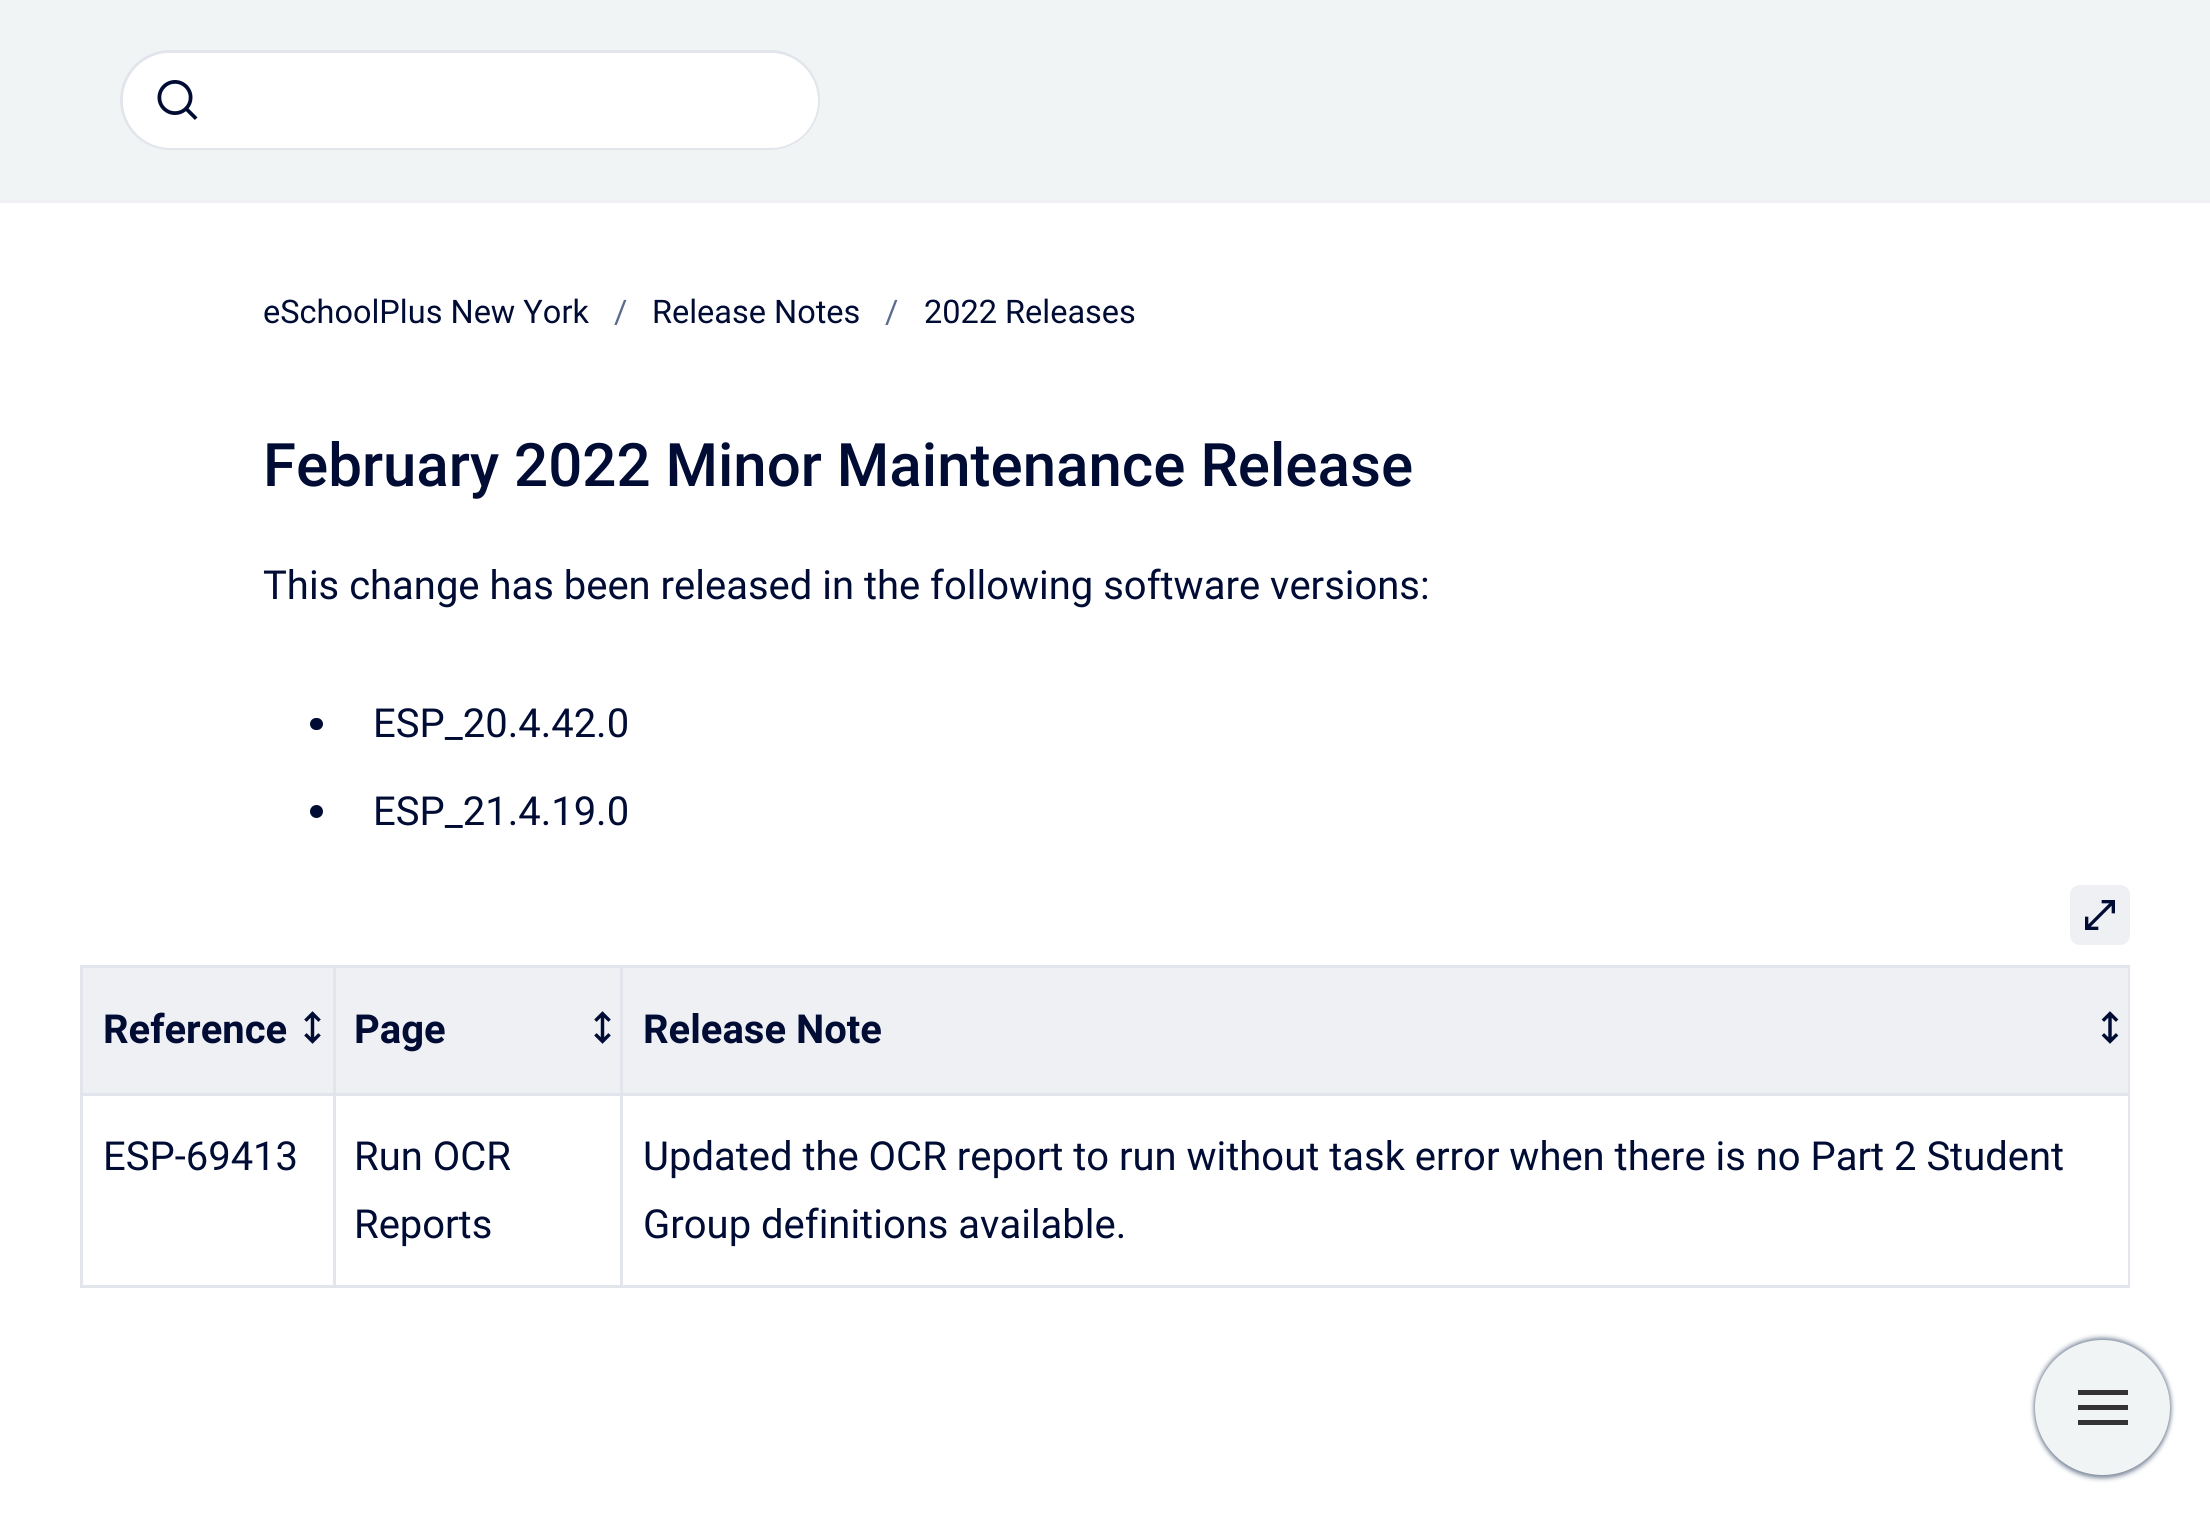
#include <cairo/cairo.h>
#include <math.h>
#include <stddef.h>


static void rounded_rect(cairo_t *cr, double x, double y, double w, double h, double r) {
  cairo_new_sub_path(cr);
  cairo_arc(cr, x + w - r, y + h - r, r, 0, M_PI / 2);
  cairo_arc(cr, x + r, y + h - r, r, M_PI / 2, M_PI);
  cairo_arc(cr, x + r, y + r, r, M_PI, 1.5 * M_PI);
  cairo_arc(cr, x + w - r, y + r, r, 1.5 * M_PI, 2 * M_PI);
  cairo_close_path(cr);
}

static void draw_shadow(cairo_t *cr, double x, double y, double w, double h, double r, double blur, double alpha) {
  cairo_push_group_with_content(cr, CAIRO_CONTENT_ALPHA);
  cairo_set_operator(cr, CAIRO_OPERATOR_SOURCE);
  for (int i = 15; i >= -15 && fmin(w, h) + blur * i / 3 > 0; i -= 2) {
    double e = blur * i / 6;
    cairo_set_source_rgba(cr, 0, 0, 0, alpha * erfc((i - 1) / 8.5) / 2);
    rounded_rect(cr, x - e, y - e, w + 2 * e, h + 2 * e, fmax(0, fmin(r + e + blur * .6, fmin(w, h) / 2 + e)));
    cairo_fill(cr);
  }
  cairo_pattern_t *soft = cairo_pop_group(cr);
  cairo_mask(cr, soft);
  cairo_pattern_destroy(soft);
}

static void draw_image(cairo_t *cr, const char *path, double x, double y, double w, double h) {
  cairo_surface_t *image = cairo_image_surface_create_from_png(path);
  cairo_save(cr);
  cairo_set_source_surface(cr, image, x, y);
  cairo_rectangle(cr, x, y, w, h);
  cairo_fill(cr);
  cairo_restore(cr);
  cairo_surface_destroy(image);
}

static void draw(cairo_t *cr) {
  cairo_set_source_rgb(cr, 1, 1, 1);
  cairo_paint(cr);
  cairo_set_source_rgb(cr, 241 / 255.0, 244 / 255.0, 244 / 255.0);
  cairo_rectangle(cr, 0, 0, 2210, 200);
  cairo_fill(cr);
  cairo_set_source_rgb(cr, 239 / 255.0, 240 / 255.0, 244 / 255.0);
  cairo_rectangle(cr, 0, 200, 2210, 3);
  cairo_fill(cr);
  cairo_set_source_rgb(cr, 1, 1, 1);
  rounded_rect(cr, 121.5, 51.5, 697, 97, 48.5);
  cairo_fill_preserve(cr);
  cairo_set_source_rgb(cr, 226 / 255.0, 229 / 255.0, 235 / 255.0);
  cairo_set_line_width(cr, 3);
  cairo_stroke(cr);
  cairo_set_source_rgb(cr, 1, 1, 1);
  rounded_rect(cr, 123, 53, 695, 95, 47.5);
  cairo_fill(cr);
  draw_image(cr, "images/1.png", 157, 80, 41, 40);
  cairo_set_source_rgb(cr, 0, 12 / 255.0, 52 / 255.0);
  rounded_rect(cr, 310, 718, 13, 12, 6);
  cairo_fill(cr);
  cairo_arc(cr, 316.5, 811.5, 6.5, 0, 2 * M_PI);
  cairo_fill(cr);
  cairo_set_source_rgb(cr, 239 / 255.0, 240 / 255.0, 244 / 255.0);
  rounded_rect(cr, 2071.5, 886.5, 57, 57, 8.5);
  cairo_fill_preserve(cr);
  cairo_stroke(cr);
  draw_image(cr, "images/2.png", 2085, 900, 30, 30);
  cairo_set_source_rgb(cr, 226 / 255.0, 229 / 255.0, 235 / 255.0);
  cairo_rectangle(cr, 80, 965, 2050, 3);
  cairo_fill(cr);
  cairo_rectangle(cr, 2128, 965, 2, 323);
  cairo_fill(cr);
  cairo_rectangle(cr, 80, 1285, 2050, 3);
  cairo_fill(cr);
  cairo_rectangle(cr, 80, 965, 3, 323);
  cairo_fill(cr);
  cairo_set_source_rgb(cr, 239 / 255.0, 240 / 255.0, 244 / 255.0);
  cairo_rectangle(cr, 83, 968, 250, 125);
  cairo_fill(cr);
  draw_image(cr, "images/3.png", 304, 1011, 17, 33);
  cairo_rectangle(cr, 336, 968, 284, 125);
  cairo_fill(cr);
  draw_image(cr, "images/3.png", 594, 1011, 17, 33);
  cairo_set_source_rgb(cr, 226 / 255.0, 229 / 255.0, 235 / 255.0);
  cairo_rectangle(cr, 620, 1093, 1510, 3);
  cairo_fill(cr);
  cairo_rectangle(cr, 620, 1093, 3, 195);
  cairo_fill(cr);
  cairo_rectangle(cr, 333, 1093, 290, 3);
  cairo_fill(cr);
  cairo_rectangle(cr, 333, 1093, 3, 195);
  cairo_fill(cr);
  cairo_rectangle(cr, 80, 1093, 255, 3);
  cairo_fill(cr);
  cairo_rectangle(cr, 333, 965, 3, 130);
  cairo_fill(cr);
  cairo_set_source_rgb(cr, 239 / 255.0, 240 / 255.0, 244 / 255.0);
  cairo_rectangle(cr, 623, 968, 1505, 125);
  cairo_fill(cr);
  draw_image(cr, "images/4.png", 2101, 1011, 18, 33);
  cairo_set_source_rgb(cr, 226 / 255.0, 229 / 255.0, 235 / 255.0);
  cairo_rectangle(cr, 620, 965, 3, 130);
  cairo_fill(cr);
  cairo_set_source_rgb(cr, 122 / 255.0, 134 / 255.0, 154 / 255.0);
  draw_shadow(cr, 2035, 1338, 135, 135, 67.5, 2.5, 1);
  draw_shadow(cr, 2035, 1343, 135, 135, 67.5, 2.5, 1);
  cairo_set_source_rgb(cr, 241 / 255.0, 244 / 255.0, 244 / 255.0);
  cairo_arc(cr, 2102.5, 1407.5, 67.5, 0, 2 * M_PI);
  cairo_fill(cr);
  cairo_set_source_rgb(cr, 51 / 255.0, 51 / 255.0, 51 / 255.0);
  cairo_rectangle(cr, 2078, 1390, 50, 5);
  cairo_fill(cr);
  cairo_rectangle(cr, 2078, 1405, 50, 5);
  cairo_fill(cr);
  cairo_rectangle(cr, 2078, 1420, 50, 5);
  cairo_fill(cr);
  cairo_select_font_face(cr, "Roboto", CAIRO_FONT_SLANT_NORMAL, CAIRO_FONT_WEIGHT_NORMAL);
  cairo_set_font_size(cr, 32.5);
  cairo_set_source_rgb(cr, 0, 12 / 255.0, 52 / 255.0);
  cairo_move_to(cr, 263, 323);
  cairo_show_text(cr, "eSchoolPlus New York");
  cairo_set_source_rgb(cr, 93 / 255.0, 107 / 255.0, 143 / 255.0);
  cairo_move_to(cr, 614, 323);
  cairo_show_text(cr, "/");
  cairo_set_source_rgb(cr, 0, 12 / 255.0, 52 / 255.0);
  cairo_move_to(cr, 652, 323);
  cairo_show_text(cr, "Release Notes");
  cairo_set_source_rgb(cr, 93 / 255.0, 107 / 255.0, 143 / 255.0);
  cairo_move_to(cr, 885, 323);
  cairo_show_text(cr, "/");
  cairo_set_source_rgb(cr, 0, 12 / 255.0, 52 / 255.0);
  cairo_move_to(cr, 924, 323);
  cairo_show_text(cr, "2022 Releases");
  cairo_select_font_face(cr, "Roboto Medium", CAIRO_FONT_SLANT_NORMAL, CAIRO_FONT_WEIGHT_NORMAL);
  cairo_set_font_size(cr, 60);
  cairo_move_to(cr, 263, 486);
  cairo_show_text(cr, "February 2022 Minor Maintenance Release");
  cairo_select_font_face(cr, "Roboto", CAIRO_FONT_SLANT_NORMAL, CAIRO_FONT_WEIGHT_NORMAL);
  cairo_set_font_size(cr, 40);
  cairo_move_to(cr, 263, 599);
  cairo_show_text(cr, "This change has been released in the following software versions:");
  cairo_move_to(cr, 373, 737);
  cairo_show_text(cr, "ESP_20.4.42.0");
  cairo_move_to(cr, 373, 825);
  cairo_show_text(cr, "ESP_21.4.19.0");
  cairo_select_font_face(cr, "Roboto", CAIRO_FONT_SLANT_NORMAL, CAIRO_FONT_WEIGHT_BOLD);
  cairo_move_to(cr, 103, 1043);
  cairo_show_text(cr, "Reference");
  cairo_move_to(cr, 354, 1043);
  cairo_show_text(cr, "Page");
  cairo_move_to(cr, 643, 1043);
  cairo_show_text(cr, "Release Note");
  cairo_select_font_face(cr, "Roboto", CAIRO_FONT_SLANT_NORMAL, CAIRO_FONT_WEIGHT_NORMAL);
  cairo_move_to(cr, 103, 1170);
  cairo_show_text(cr, "ESP-69413");
  cairo_move_to(cr, 354, 1170);
  cairo_show_text(cr, "Run OCR");
  cairo_move_to(cr, 354, 1238);
  cairo_show_text(cr, "Reports");
  cairo_move_to(cr, 643, 1170);
  cairo_show_text(cr, "Updated the OCR report to run without task error when there is no Part 2 Student");
  cairo_move_to(cr, 643, 1238);
  cairo_show_text(cr, "Group definitions available.");
}

int main(void) {
  cairo_surface_t *surface = cairo_image_surface_create(CAIRO_FORMAT_RGB24, 2210, 1513);
  cairo_t *cr = cairo_create(surface);
  cairo_font_options_t *options = cairo_font_options_create();
  cairo_font_options_set_hint_metrics(options, CAIRO_HINT_METRICS_OFF);
  cairo_font_options_set_hint_style(options, CAIRO_HINT_STYLE_NONE);
  cairo_set_font_options(cr, options);
  cairo_set_miter_limit(cr, 4);
  draw(cr);
  cairo_surface_write_to_png(surface, "out.png");
  cairo_font_options_destroy(options);
  cairo_destroy(cr);
  cairo_surface_destroy(surface);
  return 0;
}
